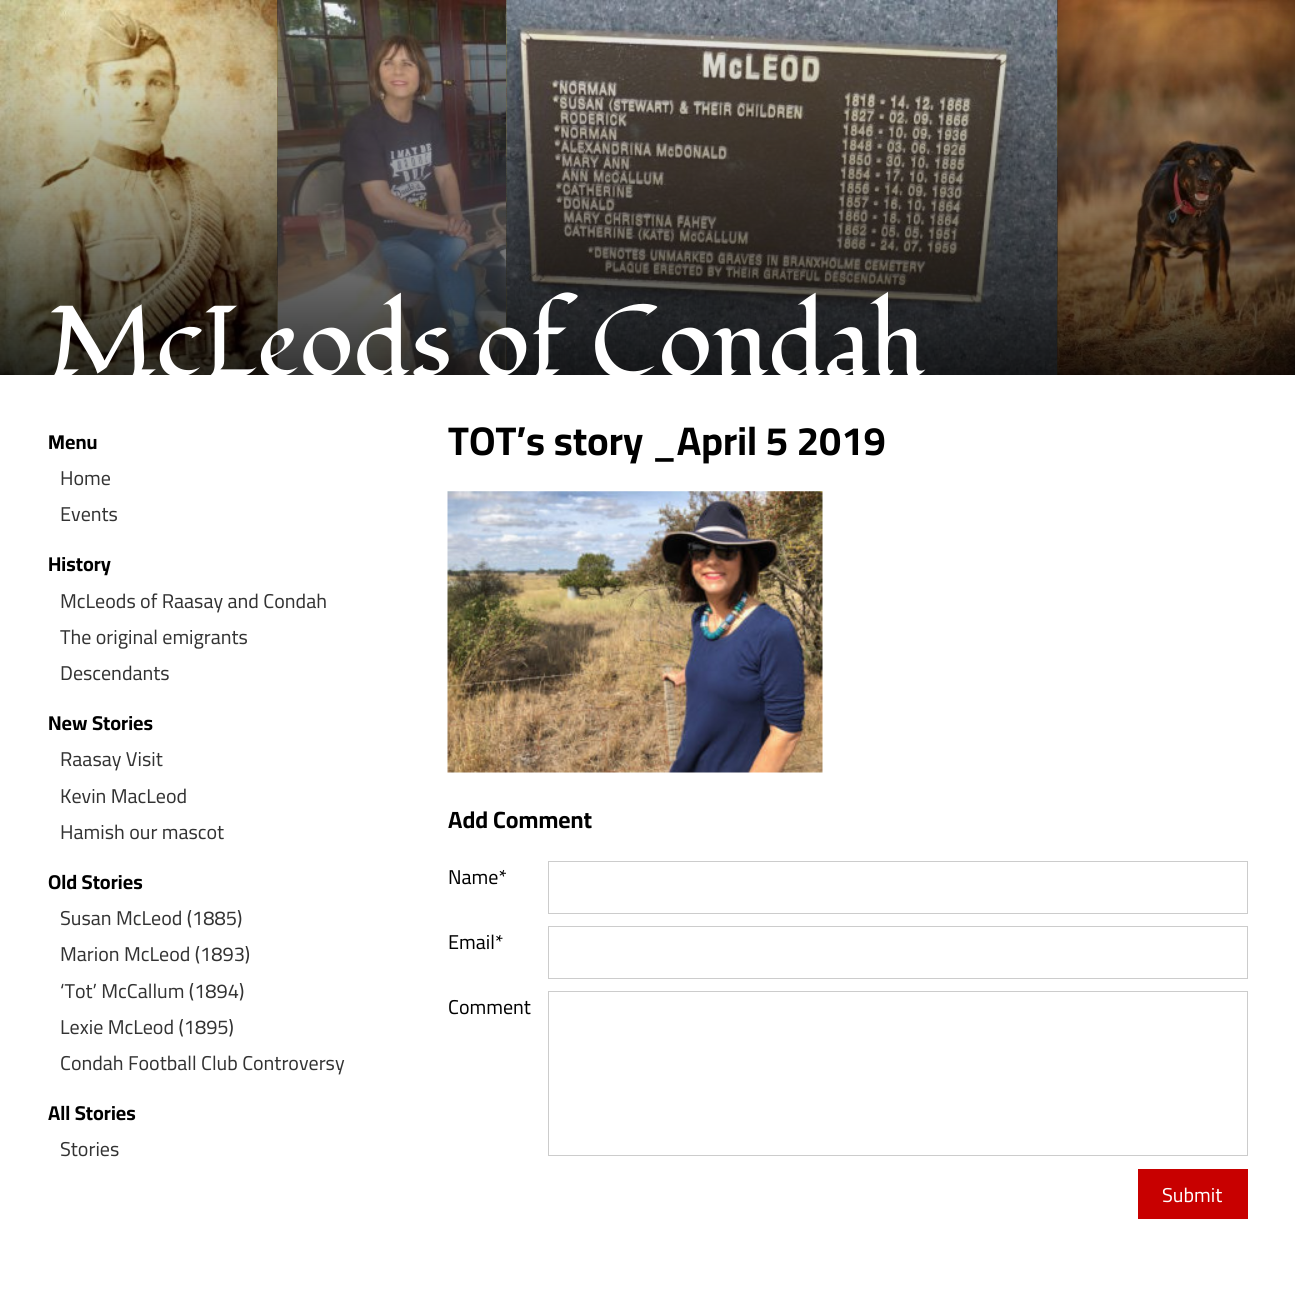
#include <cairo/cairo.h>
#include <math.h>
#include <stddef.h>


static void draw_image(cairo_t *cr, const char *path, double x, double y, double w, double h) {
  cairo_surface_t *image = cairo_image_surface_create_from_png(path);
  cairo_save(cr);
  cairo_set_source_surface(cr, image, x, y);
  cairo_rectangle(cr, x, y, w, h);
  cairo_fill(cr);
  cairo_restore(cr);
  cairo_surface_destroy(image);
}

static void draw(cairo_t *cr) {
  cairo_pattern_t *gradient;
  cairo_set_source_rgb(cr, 1, 1, 1);
  cairo_paint(cr);
  draw_image(cr, "images/1.png", 277, 0, 781, 375);
  draw_image(cr, "images/2.png", 0, 0, 278, 375);
  draw_image(cr, "images/3.png", 277, 0, 230, 375);
  draw_image(cr, "images/4.png", 506, 0, 552, 375);
  draw_image(cr, "images/5.png", 1057, 0, 238, 375);
  gradient = cairo_pattern_create_linear(648, 0, 648, 375);
  cairo_pattern_add_color_stop_rgba(gradient, 0, 0, 0, 0, 0);
  cairo_pattern_add_color_stop_rgba(gradient, 1, 0, 0, 0, 0.8);
  cairo_set_source(cr, gradient);
  cairo_pattern_destroy(gradient);
  cairo_rectangle(cr, 0, 10, 1295, 365);
  cairo_fill(cr);
  draw_image(cr, "images/6.png", 447, 491, 376, 282);
  cairo_rectangle(cr, 548.5, 861.5, 699, 52);
  cairo_set_source_rgb(cr, 204 / 255.0, 204 / 255.0, 204 / 255.0);
  cairo_set_line_width(cr, 1);
  cairo_stroke(cr);
  cairo_rectangle(cr, 548.5, 926.5, 699, 52);
  cairo_stroke(cr);
  cairo_rectangle(cr, 548.5, 991.5, 699, 164);
  cairo_stroke(cr);
  cairo_set_source_rgb(cr, 200 / 255.0, 0, 0);
  cairo_rectangle(cr, 1138, 1169, 110, 50);
  cairo_fill(cr);
  cairo_select_font_face(cr, "Fondamento", CAIRO_FONT_SLANT_NORMAL, CAIRO_FONT_WEIGHT_NORMAL);
  cairo_set_font_size(cr, 100);
  cairo_set_source_rgb(cr, 1, 1, 1);
  cairo_move_to(cr, 48, 376);
  cairo_show_text(cr, "McLeods of Condah");
  cairo_select_font_face(cr, "Cairo", CAIRO_FONT_SLANT_NORMAL, CAIRO_FONT_WEIGHT_BOLD);
  cairo_set_font_size(cr, 20);
  cairo_set_source_rgb(cr, 0, 0, 0);
  cairo_move_to(cr, 48, 449);
  cairo_show_text(cr, "Menu");
  cairo_select_font_face(cr, "Cairo", CAIRO_FONT_SLANT_NORMAL, CAIRO_FONT_WEIGHT_NORMAL);
  cairo_set_source_rgb(cr, 51 / 255.0, 51 / 255.0, 51 / 255.0);
  cairo_move_to(cr, 60, 485);
  cairo_show_text(cr, "Home");
  cairo_move_to(cr, 60, 521);
  cairo_show_text(cr, "Events");
  cairo_select_font_face(cr, "Cairo", CAIRO_FONT_SLANT_NORMAL, CAIRO_FONT_WEIGHT_BOLD);
  cairo_set_source_rgb(cr, 0, 0, 0);
  cairo_move_to(cr, 48, 571);
  cairo_show_text(cr, "History");
  cairo_select_font_face(cr, "Cairo", CAIRO_FONT_SLANT_NORMAL, CAIRO_FONT_WEIGHT_NORMAL);
  cairo_set_source_rgb(cr, 51 / 255.0, 51 / 255.0, 51 / 255.0);
  cairo_move_to(cr, 60, 608);
  cairo_show_text(cr, "McLeods of Raasay and Condah");
  cairo_move_to(cr, 60, 644);
  cairo_show_text(cr, "The original emigrants");
  cairo_move_to(cr, 60, 680);
  cairo_show_text(cr, "Descendants");
  cairo_select_font_face(cr, "Cairo", CAIRO_FONT_SLANT_NORMAL, CAIRO_FONT_WEIGHT_BOLD);
  cairo_set_source_rgb(cr, 0, 0, 0);
  cairo_move_to(cr, 48, 730);
  cairo_show_text(cr, "New Stories");
  cairo_select_font_face(cr, "Cairo", CAIRO_FONT_SLANT_NORMAL, CAIRO_FONT_WEIGHT_NORMAL);
  cairo_set_source_rgb(cr, 51 / 255.0, 51 / 255.0, 51 / 255.0);
  cairo_move_to(cr, 60, 766);
  cairo_show_text(cr, "Raasay Visit");
  cairo_move_to(cr, 60, 803);
  cairo_show_text(cr, "Kevin MacLeod");
  cairo_move_to(cr, 60, 839);
  cairo_show_text(cr, "Hamish our mascot");
  cairo_select_font_face(cr, "Cairo", CAIRO_FONT_SLANT_NORMAL, CAIRO_FONT_WEIGHT_BOLD);
  cairo_set_source_rgb(cr, 0, 0, 0);
  cairo_move_to(cr, 48, 889);
  cairo_show_text(cr, "Old Stories");
  cairo_select_font_face(cr, "Cairo", CAIRO_FONT_SLANT_NORMAL, CAIRO_FONT_WEIGHT_NORMAL);
  cairo_set_source_rgb(cr, 51 / 255.0, 51 / 255.0, 51 / 255.0);
  cairo_move_to(cr, 60, 925);
  cairo_show_text(cr, "Susan McLeod (1885)");
  cairo_move_to(cr, 60, 961);
  cairo_show_text(cr, "Marion McLeod (1893)");
  cairo_move_to(cr, 60, 998);
  cairo_show_text(cr, "‘Tot’ McCallum (1894)");
  cairo_move_to(cr, 60, 1034);
  cairo_show_text(cr, "Lexie McLeod (1895)");
  cairo_move_to(cr, 60, 1070);
  cairo_show_text(cr, "Condah Football Club Controversy");
  cairo_select_font_face(cr, "Cairo", CAIRO_FONT_SLANT_NORMAL, CAIRO_FONT_WEIGHT_BOLD);
  cairo_set_source_rgb(cr, 0, 0, 0);
  cairo_move_to(cr, 48, 1120);
  cairo_show_text(cr, "All Stories");
  cairo_select_font_face(cr, "Cairo", CAIRO_FONT_SLANT_NORMAL, CAIRO_FONT_WEIGHT_NORMAL);
  cairo_set_source_rgb(cr, 51 / 255.0, 51 / 255.0, 51 / 255.0);
  cairo_move_to(cr, 60, 1156);
  cairo_show_text(cr, "Stories");
  cairo_select_font_face(cr, "Cairo", CAIRO_FONT_SLANT_NORMAL, CAIRO_FONT_WEIGHT_BOLD);
  cairo_set_font_size(cr, 40);
  cairo_set_source_rgb(cr, 0, 0, 0);
  cairo_move_to(cr, 448, 455);
  cairo_show_text(cr, "TOT’s story _April 5 2019");
  cairo_set_font_size(cr, 23.5);
  cairo_move_to(cr, 448, 828);
  cairo_show_text(cr, "Add Comment");
  cairo_select_font_face(cr, "Cairo", CAIRO_FONT_SLANT_NORMAL, CAIRO_FONT_WEIGHT_NORMAL);
  cairo_set_font_size(cr, 20);
  cairo_move_to(cr, 448, 884);
  cairo_show_text(cr, "Name*");
  cairo_move_to(cr, 448, 949);
  cairo_show_text(cr, "Email*");
  cairo_move_to(cr, 448, 1014);
  cairo_show_text(cr, "Comment");
  cairo_set_source_rgb(cr, 1, 1, 1);
  cairo_move_to(cr, 1162, 1202);
  cairo_show_text(cr, "Submit");
}

int main(void) {
  cairo_surface_t *surface = cairo_image_surface_create(CAIRO_FORMAT_RGB24, 1295, 1293);
  cairo_t *cr = cairo_create(surface);
  cairo_font_options_t *options = cairo_font_options_create();
  cairo_font_options_set_hint_metrics(options, CAIRO_HINT_METRICS_OFF);
  cairo_font_options_set_hint_style(options, CAIRO_HINT_STYLE_NONE);
  cairo_set_font_options(cr, options);
  cairo_set_miter_limit(cr, 4);
  draw(cr);
  cairo_surface_write_to_png(surface, "out.png");
  cairo_font_options_destroy(options);
  cairo_destroy(cr);
  cairo_surface_destroy(surface);
  return 0;
}
